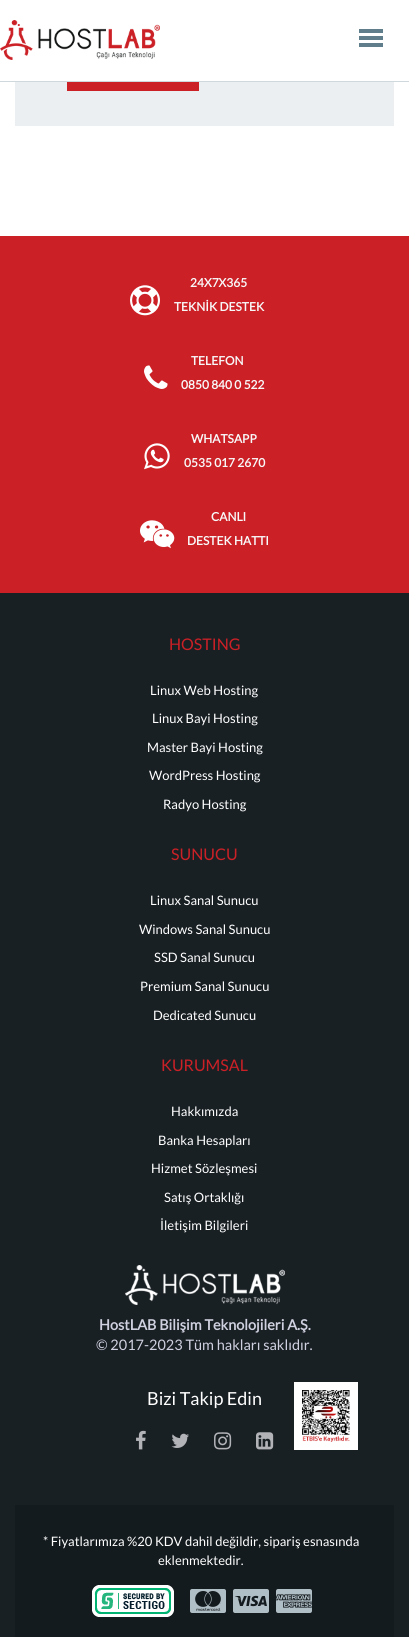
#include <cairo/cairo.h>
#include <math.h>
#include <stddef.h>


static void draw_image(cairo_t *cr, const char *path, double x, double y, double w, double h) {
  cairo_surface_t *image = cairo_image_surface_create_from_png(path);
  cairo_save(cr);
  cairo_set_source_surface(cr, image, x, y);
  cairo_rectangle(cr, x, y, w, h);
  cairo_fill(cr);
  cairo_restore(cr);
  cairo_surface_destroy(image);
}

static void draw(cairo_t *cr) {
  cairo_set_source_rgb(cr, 1, 1, 1);
  cairo_paint(cr);
  cairo_set_source_rgb(cr, 207 / 255.0, 216 / 255.0, 220 / 255.0);
  cairo_rectangle(cr, 0, 81, 409, 1);
  cairo_fill(cr);
  draw_image(cr, "images/1.png", 0, 20, 160, 40);
  cairo_set_source_rgb(cr, 96 / 255.0, 125 / 255.0, 139 / 255.0);
  cairo_rectangle(cr, 359, 29, 24, 4);
  cairo_fill(cr);
  cairo_rectangle(cr, 359, 36, 24, 4);
  cairo_fill(cr);
  cairo_rectangle(cr, 359, 43, 24, 4);
  cairo_fill(cr);
  cairo_set_source_rgb(cr, 236 / 255.0, 239 / 255.0, 241 / 255.0);
  cairo_rectangle(cr, 15, 82, 379, 44);
  cairo_fill(cr);
  cairo_set_source_rgb(cr, 203 / 255.0, 32 / 255.0, 38 / 255.0);
  cairo_rectangle(cr, 67, 82, 132, 9);
  cairo_fill(cr);
  cairo_rectangle(cr, 0, 236, 409, 357);
  cairo_fill(cr);
  draw_image(cr, "images/2.png", 130, 285, 30, 31);
  draw_image(cr, "images/3.png", 144, 365, 24, 24);
  draw_image(cr, "images/4.png", 144, 443, 26, 27);
  draw_image(cr, "images/5.png", 140, 520, 35, 29);
  cairo_set_source_rgb(cr, 25 / 255.0, 32 / 255.0, 36 / 255.0);
  cairo_rectangle(cr, 0, 593, 409, 1044);
  cairo_fill(cr);
  draw_image(cr, "images/6.png", 125, 1265, 160, 40);
  draw_image(cr, "images/7.png", 136, 1430, 10, 20);
  draw_image(cr, "images/8.png", 171, 1433, 18, 15);
  draw_image(cr, "images/9.png", 214, 1432, 18, 18);
  draw_image(cr, "images/10.png", 256, 1432, 18, 18);
  cairo_set_source_rgb(cr, 1, 1, 1);
  cairo_rectangle(cr, 294, 1382, 64, 68);
  cairo_fill(cr);
  draw_image(cr, "images/11.png", 302, 1390, 48, 52);
  cairo_set_source_rgb(cr, 20 / 255.0, 27 / 255.0, 30 / 255.0);
  cairo_rectangle(cr, 15, 1505, 379, 132);
  cairo_fill(cr);
  draw_image(cr, "images/12.png", 92, 1585, 82, 32);
  draw_image(cr, "images/13.png", 190, 1589, 36, 24);
  draw_image(cr, "images/14.png", 233, 1589, 36, 24);
  draw_image(cr, "images/15.png", 276, 1589, 36, 24);
  cairo_select_font_face(cr, "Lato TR", CAIRO_FONT_SLANT_NORMAL, CAIRO_FONT_WEIGHT_BOLD);
  cairo_set_font_size(cr, 12);
  cairo_set_source_rgb(cr, 248 / 255.0, 248 / 255.0, 248 / 255.0);
  cairo_move_to(cr, 190, 287);
  cairo_show_text(cr, "24X7X365");
  cairo_move_to(cr, 174, 311);
  cairo_show_text(cr, "TEKNİK DESTEK");
  cairo_move_to(cr, 191, 365);
  cairo_show_text(cr, "TELEFON");
  cairo_move_to(cr, 181, 389);
  cairo_show_text(cr, "0850 840 0 522");
  cairo_move_to(cr, 191, 443);
  cairo_show_text(cr, "WHATSAPP");
  cairo_move_to(cr, 184, 467);
  cairo_show_text(cr, "0535 017 2670");
  cairo_move_to(cr, 211, 521);
  cairo_show_text(cr, "CANLI");
  cairo_move_to(cr, 187, 545);
  cairo_show_text(cr, "DESTEK HATTI");
  cairo_select_font_face(cr, "Lato TR", CAIRO_FONT_SLANT_NORMAL, CAIRO_FONT_WEIGHT_NORMAL);
  cairo_set_font_size(cr, 16);
  cairo_set_source_rgb(cr, 203 / 255.0, 32 / 255.0, 38 / 255.0);
  cairo_move_to(cr, 169, 650);
  cairo_show_text(cr, "HOSTING");
  cairo_set_font_size(cr, 13);
  cairo_set_source_rgb(cr, 1, 1, 1);
  cairo_move_to(cr, 150, 695);
  cairo_show_text(cr, "Linux Web Hosting");
  cairo_move_to(cr, 152, 723);
  cairo_show_text(cr, "Linux Bayi Hosting");
  cairo_move_to(cr, 147, 752);
  cairo_show_text(cr, "Master Bayi Hosting");
  cairo_move_to(cr, 149, 780);
  cairo_show_text(cr, "WordPress Hosting");
  cairo_move_to(cr, 163, 809);
  cairo_show_text(cr, "Radyo Hosting");
  cairo_set_font_size(cr, 16);
  cairo_set_source_rgb(cr, 203 / 255.0, 32 / 255.0, 38 / 255.0);
  cairo_move_to(cr, 171, 860);
  cairo_show_text(cr, "SUNUCU");
  cairo_set_font_size(cr, 13);
  cairo_set_source_rgb(cr, 1, 1, 1);
  cairo_move_to(cr, 150, 905);
  cairo_show_text(cr, "Linux Sanal Sunucu");
  cairo_move_to(cr, 139, 934);
  cairo_show_text(cr, "Windows Sanal Sunucu");
  cairo_move_to(cr, 154, 962);
  cairo_show_text(cr, "SSD Sanal Sunucu");
  cairo_move_to(cr, 140, 991);
  cairo_show_text(cr, "Premium Sanal Sunucu");
  cairo_move_to(cr, 153, 1020);
  cairo_show_text(cr, "Dedicated Sunucu");
  cairo_set_font_size(cr, 16);
  cairo_set_source_rgb(cr, 203 / 255.0, 32 / 255.0, 38 / 255.0);
  cairo_move_to(cr, 161, 1071);
  cairo_show_text(cr, "KURUMSAL");
  cairo_set_font_size(cr, 13);
  cairo_set_source_rgb(cr, 1, 1, 1);
  cairo_move_to(cr, 171, 1116);
  cairo_show_text(cr, "Hakkımızda");
  cairo_move_to(cr, 158, 1145);
  cairo_show_text(cr, "Banka Hesapları");
  cairo_move_to(cr, 151, 1173);
  cairo_show_text(cr, "Hizmet Sözleşmesi");
  cairo_move_to(cr, 164, 1202);
  cairo_show_text(cr, "Satış Ortaklığı");
  cairo_move_to(cr, 160, 1230);
  cairo_show_text(cr, "İletişim Bilgileri");
  cairo_select_font_face(cr, "Lato TR", CAIRO_FONT_SLANT_NORMAL, CAIRO_FONT_WEIGHT_BOLD);
  cairo_set_font_size(cr, 14.5);
  cairo_set_source_rgb(cr, 208 / 255.0, 209 / 255.0, 224 / 255.0);
  cairo_move_to(cr, 99, 1330);
  cairo_show_text(cr, "HostLAB Bilişim Teknolojileri A.Ş.");
  cairo_select_font_face(cr, "Lato TR", CAIRO_FONT_SLANT_NORMAL, CAIRO_FONT_WEIGHT_NORMAL);
  cairo_move_to(cr, 96, 1350);
  cairo_show_text(cr, "© 2017-2023 Tüm hakları saklıdır.");
  cairo_set_font_size(cr, 18);
  cairo_set_source_rgb(cr, 1, 1, 1);
  cairo_move_to(cr, 147, 1405);
  cairo_show_text(cr, "Bizi Takip Edin");
  cairo_set_font_size(cr, 13);
  cairo_move_to(cr, 43, 1546);
  cairo_show_text(cr, "* Fiyatlarımıza %20 KDV dahil değildir, sipariş esnasında");
  cairo_move_to(cr, 158, 1565);
  cairo_show_text(cr, "eklenmektedir.");
}

int main(void) {
  cairo_surface_t *surface = cairo_image_surface_create(CAIRO_FORMAT_RGB24, 409, 1637);
  cairo_t *cr = cairo_create(surface);
  cairo_font_options_t *options = cairo_font_options_create();
  cairo_font_options_set_hint_metrics(options, CAIRO_HINT_METRICS_OFF);
  cairo_font_options_set_hint_style(options, CAIRO_HINT_STYLE_NONE);
  cairo_set_font_options(cr, options);
  cairo_set_miter_limit(cr, 4);
  draw(cr);
  cairo_surface_write_to_png(surface, "out.png");
  cairo_font_options_destroy(options);
  cairo_destroy(cr);
  cairo_surface_destroy(surface);
  return 0;
}
